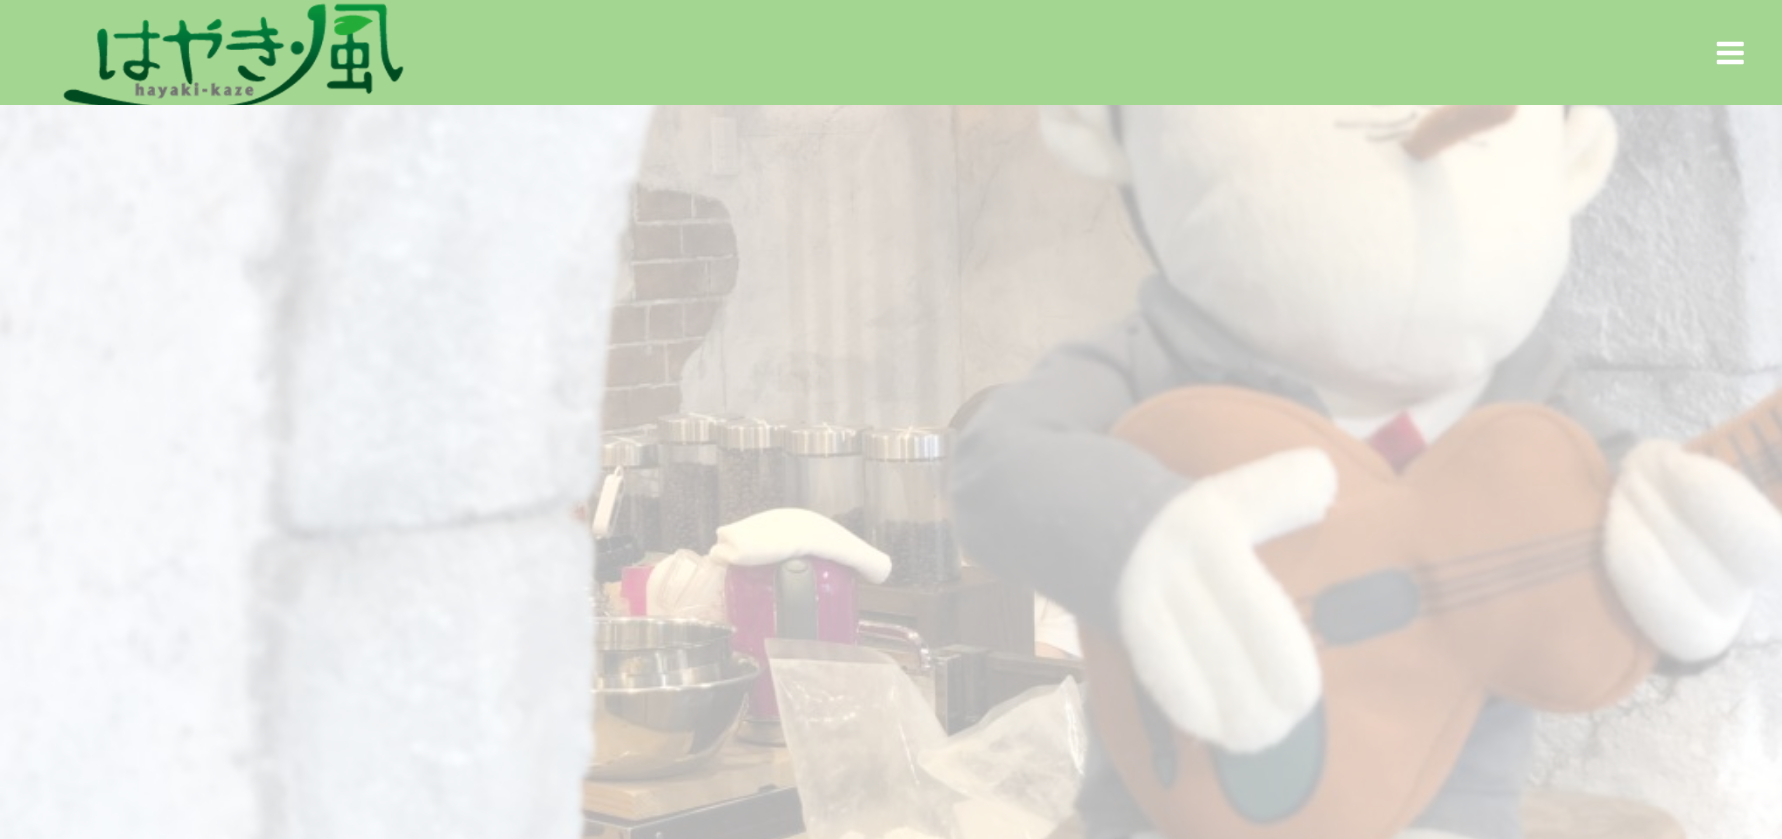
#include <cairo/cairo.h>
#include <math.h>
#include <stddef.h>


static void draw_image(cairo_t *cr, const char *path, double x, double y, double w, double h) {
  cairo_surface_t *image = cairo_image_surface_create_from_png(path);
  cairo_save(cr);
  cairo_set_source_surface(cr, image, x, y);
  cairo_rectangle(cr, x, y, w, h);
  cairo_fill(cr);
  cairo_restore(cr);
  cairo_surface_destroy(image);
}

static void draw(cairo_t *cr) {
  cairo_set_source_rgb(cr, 1, 1, 1);
  cairo_paint(cr);
  cairo_set_source_rgb(cr, 163 / 255.0, 214 / 255.0, 145 / 255.0);
  cairo_rectangle(cr, 0, 0, 1782, 105);
  cairo_fill(cr);
  draw_image(cr, "images/1.png", 62, 3, 342, 102);
  draw_image(cr, "images/2.png", 1716, 41, 28, 24);
  draw_image(cr, "images/3.png", 0, 105, 1782, 734);
}

int main(void) {
  cairo_surface_t *surface = cairo_image_surface_create(CAIRO_FORMAT_RGB24, 1782, 839);
  cairo_t *cr = cairo_create(surface);
  cairo_font_options_t *options = cairo_font_options_create();
  cairo_font_options_set_hint_metrics(options, CAIRO_HINT_METRICS_OFF);
  cairo_font_options_set_hint_style(options, CAIRO_HINT_STYLE_NONE);
  cairo_set_font_options(cr, options);
  cairo_set_miter_limit(cr, 4);
  draw(cr);
  cairo_surface_write_to_png(surface, "out.png");
  cairo_font_options_destroy(options);
  cairo_destroy(cr);
  cairo_surface_destroy(surface);
  return 0;
}
